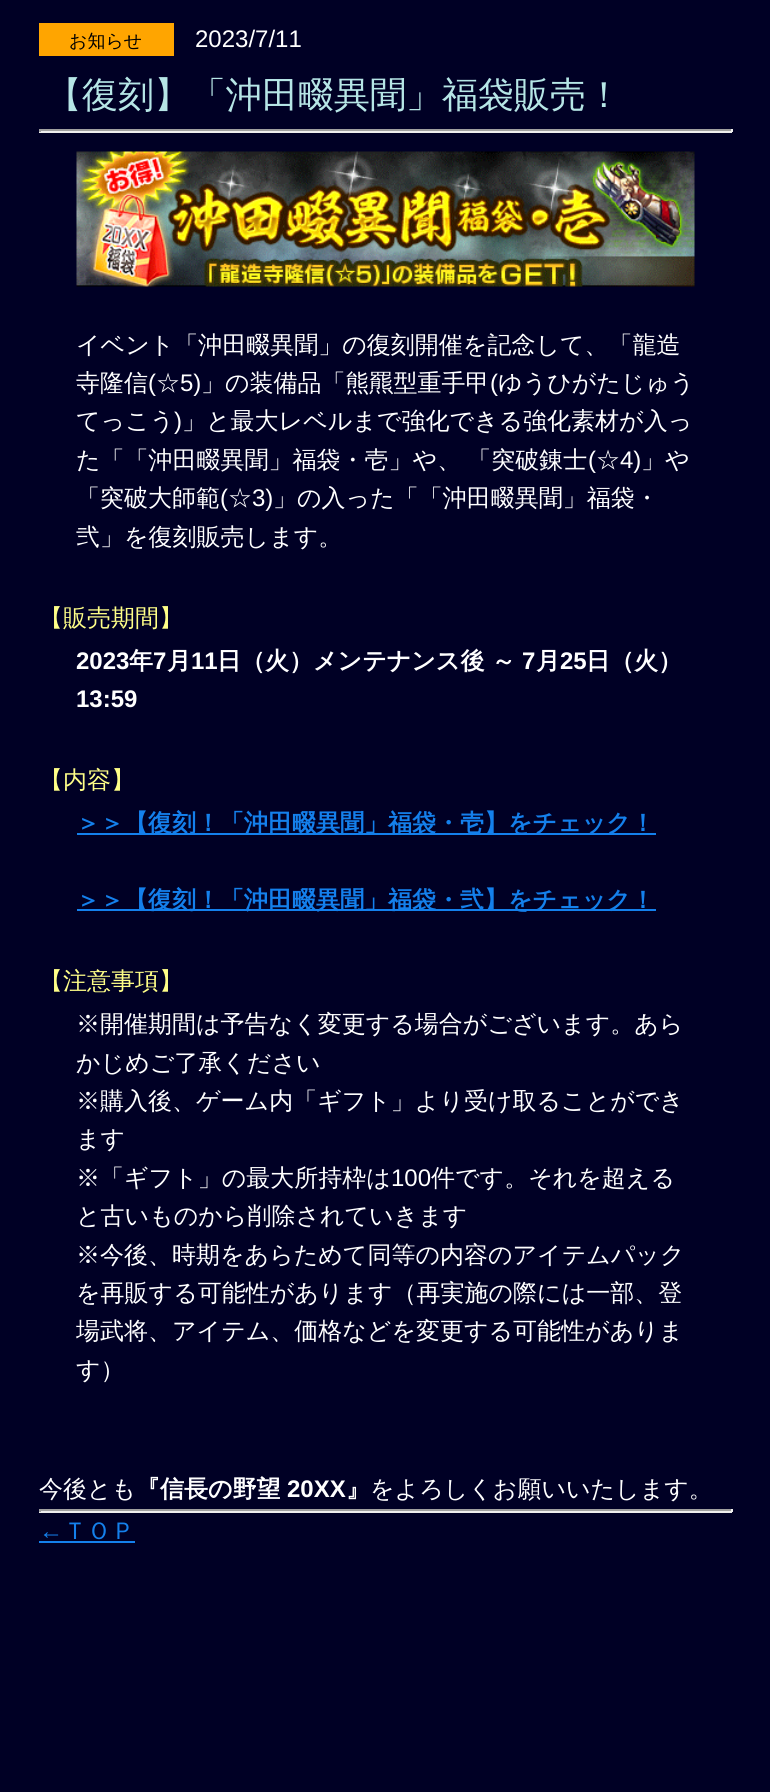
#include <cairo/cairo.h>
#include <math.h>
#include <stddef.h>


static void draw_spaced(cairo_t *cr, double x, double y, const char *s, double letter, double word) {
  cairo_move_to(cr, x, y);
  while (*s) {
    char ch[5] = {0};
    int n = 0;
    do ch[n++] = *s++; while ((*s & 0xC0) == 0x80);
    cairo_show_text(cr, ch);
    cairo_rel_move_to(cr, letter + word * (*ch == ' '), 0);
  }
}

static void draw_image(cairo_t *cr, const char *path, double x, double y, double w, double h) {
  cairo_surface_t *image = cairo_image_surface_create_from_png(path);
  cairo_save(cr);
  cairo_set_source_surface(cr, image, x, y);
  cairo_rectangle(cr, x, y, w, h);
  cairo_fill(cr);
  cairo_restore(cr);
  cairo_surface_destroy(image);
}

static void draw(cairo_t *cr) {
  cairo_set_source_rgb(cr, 0, 0, 37 / 255.0);
  cairo_paint(cr);
  cairo_set_source_rgb(cr, 1, 165 / 255.0, 0);
  cairo_rectangle(cr, 39, 23, 135, 33);
  cairo_fill(cr);
  cairo_set_source_rgb(cr, 159 / 255.0, 159 / 255.0, 159 / 255.0);
  cairo_rectangle(cr, 39, 129, 693, 2);
  cairo_fill(cr);
  cairo_set_source_rgb(cr, 238 / 255.0, 238 / 255.0, 238 / 255.0);
  cairo_rectangle(cr, 731, 129, 2, 3);
  cairo_fill(cr);
  cairo_rectangle(cr, 39, 131, 693, 2);
  cairo_fill(cr);
  cairo_set_source_rgb(cr, 159 / 255.0, 159 / 255.0, 159 / 255.0);
  cairo_rectangle(cr, 39, 129, 2, 3);
  cairo_fill(cr);
  draw_image(cr, "images/1.png", 76, 151, 619, 136);
  cairo_set_source_rgb(cr, 20 / 255.0, 128 / 255.0, 236 / 255.0);
  cairo_rectangle(cr, 77, 833, 579, 2);
  cairo_fill(cr);
  cairo_rectangle(cr, 77, 909, 579, 2);
  cairo_fill(cr);
  cairo_set_source_rgb(cr, 159 / 255.0, 159 / 255.0, 159 / 255.0);
  cairo_rectangle(cr, 39, 1509, 693, 2);
  cairo_fill(cr);
  cairo_set_source_rgb(cr, 238 / 255.0, 238 / 255.0, 238 / 255.0);
  cairo_rectangle(cr, 731, 1509, 2, 3);
  cairo_fill(cr);
  cairo_rectangle(cr, 39, 1511, 693, 2);
  cairo_fill(cr);
  cairo_set_source_rgb(cr, 159 / 255.0, 159 / 255.0, 159 / 255.0);
  cairo_rectangle(cr, 39, 1509, 2, 3);
  cairo_fill(cr);
  cairo_set_source_rgb(cr, 20 / 255.0, 128 / 255.0, 236 / 255.0);
  cairo_rectangle(cr, 39, 1541, 96, 2);
  cairo_fill(cr);
  cairo_select_font_face(cr, "WenQuanYi Zen Hei Medium", CAIRO_FONT_SLANT_NORMAL, CAIRO_FONT_WEIGHT_NORMAL);
  cairo_set_font_size(cr, 18);
  cairo_set_source_rgb(cr, 0, 0, 0);
  cairo_move_to(cr, 69, 47);
  cairo_show_text(cr, "お知らせ");
  cairo_select_font_face(cr, "Liberation Sans", CAIRO_FONT_SLANT_NORMAL, CAIRO_FONT_WEIGHT_NORMAL);
  cairo_set_font_size(cr, 24);
  cairo_set_source_rgb(cr, 1, 1, 1);
  cairo_move_to(cr, 195, 47);
  cairo_show_text(cr, "2023/7/11");
  cairo_select_font_face(cr, "WenQuanYi Zen Hei Medium", CAIRO_FONT_SLANT_NORMAL, CAIRO_FONT_WEIGHT_NORMAL);
  cairo_set_font_size(cr, 36);
  cairo_set_source_rgb(cr, 182 / 255.0, 230 / 255.0, 230 / 255.0);
  cairo_move_to(cr, 46, 107);
  cairo_show_text(cr, "【復刻】「沖田畷異聞」福袋販売！");
  cairo_set_font_size(cr, 24);
  cairo_set_source_rgb(cr, 1, 1, 1);
  cairo_move_to(cr, 76, 353);
  cairo_show_text(cr, "イベント「沖田畷異聞」の復刻開催を記念して、「龍造");
  cairo_move_to(cr, 76, 391);
  cairo_show_text(cr, "寺隆信");
  cairo_select_font_face(cr, "Liberation Sans", CAIRO_FONT_SLANT_NORMAL, CAIRO_FONT_WEIGHT_NORMAL);
  cairo_move_to(cr, 148, 391);
  cairo_show_text(cr, "(");
  cairo_select_font_face(cr, "WenQuanYi Zen Hei Medium", CAIRO_FONT_SLANT_NORMAL, CAIRO_FONT_WEIGHT_NORMAL);
  cairo_move_to(cr, 156, 391);
  cairo_show_text(cr, "☆");
  cairo_select_font_face(cr, "Liberation Sans", CAIRO_FONT_SLANT_NORMAL, CAIRO_FONT_WEIGHT_NORMAL);
  cairo_move_to(cr, 180, 391);
  cairo_show_text(cr, "5)");
  cairo_select_font_face(cr, "WenQuanYi Zen Hei Medium", CAIRO_FONT_SLANT_NORMAL, CAIRO_FONT_WEIGHT_NORMAL);
  cairo_move_to(cr, 201, 391);
  cairo_show_text(cr, "」の装備品「熊羆型重手甲");
  cairo_select_font_face(cr, "Liberation Sans", CAIRO_FONT_SLANT_NORMAL, CAIRO_FONT_WEIGHT_NORMAL);
  cairo_move_to(cr, 490, 391);
  cairo_show_text(cr, "(");
  cairo_select_font_face(cr, "WenQuanYi Zen Hei Medium", CAIRO_FONT_SLANT_NORMAL, CAIRO_FONT_WEIGHT_NORMAL);
  cairo_move_to(cr, 498, 391);
  cairo_show_text(cr, "ゆうひがたじゅう");
  cairo_move_to(cr, 76, 429);
  cairo_show_text(cr, "てっこう");
  cairo_select_font_face(cr, "Liberation Sans", CAIRO_FONT_SLANT_NORMAL, CAIRO_FONT_WEIGHT_NORMAL);
  cairo_move_to(cr, 174, 429);
  cairo_show_text(cr, ")");
  cairo_select_font_face(cr, "WenQuanYi Zen Hei Medium", CAIRO_FONT_SLANT_NORMAL, CAIRO_FONT_WEIGHT_NORMAL);
  cairo_move_to(cr, 182, 429);
  cairo_show_text(cr, "」と最大レベルまで強化できる強化素材が入っ");
  draw_spaced(cr, 76, 468, "た「「沖田畷異聞」福袋・壱」や、 「突破錬士", 0, -1);
  cairo_select_font_face(cr, "Liberation Sans", CAIRO_FONT_SLANT_NORMAL, CAIRO_FONT_WEIGHT_NORMAL);
  cairo_move_to(cr, 588, 468);
  cairo_show_text(cr, "(");
  cairo_select_font_face(cr, "WenQuanYi Zen Hei Medium", CAIRO_FONT_SLANT_NORMAL, CAIRO_FONT_WEIGHT_NORMAL);
  cairo_move_to(cr, 596, 468);
  cairo_show_text(cr, "☆");
  cairo_select_font_face(cr, "Liberation Sans", CAIRO_FONT_SLANT_NORMAL, CAIRO_FONT_WEIGHT_NORMAL);
  cairo_move_to(cr, 620, 468);
  cairo_show_text(cr, "4)");
  cairo_select_font_face(cr, "WenQuanYi Zen Hei Medium", CAIRO_FONT_SLANT_NORMAL, CAIRO_FONT_WEIGHT_NORMAL);
  cairo_move_to(cr, 641, 468);
  cairo_show_text(cr, "」や");
  cairo_move_to(cr, 76, 506);
  cairo_show_text(cr, "「突破大師範");
  cairo_select_font_face(cr, "Liberation Sans", CAIRO_FONT_SLANT_NORMAL, CAIRO_FONT_WEIGHT_NORMAL);
  cairo_move_to(cr, 220, 506);
  cairo_show_text(cr, "(");
  cairo_select_font_face(cr, "WenQuanYi Zen Hei Medium", CAIRO_FONT_SLANT_NORMAL, CAIRO_FONT_WEIGHT_NORMAL);
  cairo_move_to(cr, 228, 506);
  cairo_show_text(cr, "☆");
  cairo_select_font_face(cr, "Liberation Sans", CAIRO_FONT_SLANT_NORMAL, CAIRO_FONT_WEIGHT_NORMAL);
  cairo_move_to(cr, 252, 506);
  cairo_show_text(cr, "3)");
  cairo_select_font_face(cr, "WenQuanYi Zen Hei Medium", CAIRO_FONT_SLANT_NORMAL, CAIRO_FONT_WEIGHT_NORMAL);
  cairo_move_to(cr, 273, 506);
  cairo_show_text(cr, "」の入った「「沖田畷異聞」福袋・");
  cairo_move_to(cr, 76, 545);
  cairo_show_text(cr, "弐」を復刻販売します。");
  cairo_set_source_rgb(cr, 1, 1, 136 / 255.0);
  cairo_move_to(cr, 39, 626);
  cairo_show_text(cr, "【販売期間】");
  cairo_select_font_face(cr, "Liberation Sans", CAIRO_FONT_SLANT_NORMAL, CAIRO_FONT_WEIGHT_BOLD);
  cairo_set_source_rgb(cr, 1, 1, 1);
  cairo_move_to(cr, 76, 669);
  cairo_show_text(cr, "2023");
  cairo_select_font_face(cr, "WenQuanYi Zen Hei", CAIRO_FONT_SLANT_NORMAL, CAIRO_FONT_WEIGHT_BOLD);
  cairo_move_to(cr, 129, 669);
  cairo_show_text(cr, "年");
  cairo_select_font_face(cr, "Liberation Sans", CAIRO_FONT_SLANT_NORMAL, CAIRO_FONT_WEIGHT_BOLD);
  cairo_move_to(cr, 153, 669);
  cairo_show_text(cr, "7");
  cairo_select_font_face(cr, "WenQuanYi Zen Hei", CAIRO_FONT_SLANT_NORMAL, CAIRO_FONT_WEIGHT_BOLD);
  cairo_move_to(cr, 167, 669);
  cairo_show_text(cr, "月");
  cairo_select_font_face(cr, "Liberation Sans", CAIRO_FONT_SLANT_NORMAL, CAIRO_FONT_WEIGHT_BOLD);
  cairo_move_to(cr, 191, 669);
  cairo_show_text(cr, "11");
  cairo_select_font_face(cr, "WenQuanYi Zen Hei", CAIRO_FONT_SLANT_NORMAL, CAIRO_FONT_WEIGHT_BOLD);
  cairo_move_to(cr, 217, 669);
  cairo_show_text(cr, "日（火）メンテナンス後 ～");
  cairo_select_font_face(cr, "Liberation Sans", CAIRO_FONT_SLANT_NORMAL, CAIRO_FONT_WEIGHT_BOLD);
  cairo_move_to(cr, 522, 669);
  cairo_show_text(cr, "7");
  cairo_select_font_face(cr, "WenQuanYi Zen Hei", CAIRO_FONT_SLANT_NORMAL, CAIRO_FONT_WEIGHT_BOLD);
  cairo_move_to(cr, 536, 669);
  cairo_show_text(cr, "月");
  cairo_select_font_face(cr, "Liberation Sans", CAIRO_FONT_SLANT_NORMAL, CAIRO_FONT_WEIGHT_BOLD);
  cairo_move_to(cr, 560, 669);
  cairo_show_text(cr, "25");
  cairo_select_font_face(cr, "WenQuanYi Zen Hei", CAIRO_FONT_SLANT_NORMAL, CAIRO_FONT_WEIGHT_BOLD);
  cairo_move_to(cr, 586, 669);
  cairo_show_text(cr, "日（火）");
  cairo_select_font_face(cr, "Liberation Sans", CAIRO_FONT_SLANT_NORMAL, CAIRO_FONT_WEIGHT_BOLD);
  cairo_move_to(cr, 76, 707);
  cairo_show_text(cr, "13:59");
  cairo_select_font_face(cr, "WenQuanYi Zen Hei Medium", CAIRO_FONT_SLANT_NORMAL, CAIRO_FONT_WEIGHT_NORMAL);
  cairo_set_source_rgb(cr, 1, 1, 136 / 255.0);
  cairo_move_to(cr, 39, 788);
  cairo_show_text(cr, "【内容】");
  cairo_select_font_face(cr, "WenQuanYi Zen Hei", CAIRO_FONT_SLANT_NORMAL, CAIRO_FONT_WEIGHT_BOLD);
  cairo_set_source_rgb(cr, 20 / 255.0, 128 / 255.0, 236 / 255.0);
  cairo_move_to(cr, 76, 831);
  cairo_show_text(cr, "＞＞【復刻！「沖田畷異聞」福袋・壱】をチェック！");
  cairo_move_to(cr, 76, 908);
  cairo_show_text(cr, "＞＞【復刻！「沖田畷異聞」福袋・弐】をチェック！");
  cairo_select_font_face(cr, "WenQuanYi Zen Hei Medium", CAIRO_FONT_SLANT_NORMAL, CAIRO_FONT_WEIGHT_NORMAL);
  cairo_set_source_rgb(cr, 1, 1, 136 / 255.0);
  cairo_move_to(cr, 39, 989);
  cairo_show_text(cr, "【注意事項】");
  cairo_set_source_rgb(cr, 1, 1, 1);
  cairo_move_to(cr, 76, 1032);
  cairo_show_text(cr, "※開催期間は予告なく変更する場合がございます。あら");
  cairo_move_to(cr, 76, 1071);
  cairo_show_text(cr, "かじめご了承ください");
  cairo_move_to(cr, 76, 1109);
  cairo_show_text(cr, "※購入後、ゲーム内「ギフト」より受け取ることができ");
  cairo_move_to(cr, 76, 1147);
  cairo_show_text(cr, "ます");
  cairo_move_to(cr, 76, 1186);
  cairo_show_text(cr, "※「ギフト」の最大所持枠は");
  cairo_select_font_face(cr, "Liberation Sans", CAIRO_FONT_SLANT_NORMAL, CAIRO_FONT_WEIGHT_NORMAL);
  cairo_move_to(cr, 391, 1186);
  cairo_show_text(cr, "100");
  cairo_select_font_face(cr, "WenQuanYi Zen Hei Medium", CAIRO_FONT_SLANT_NORMAL, CAIRO_FONT_WEIGHT_NORMAL);
  cairo_move_to(cr, 431, 1186);
  cairo_show_text(cr, "件です。それを超える");
  cairo_move_to(cr, 76, 1224);
  cairo_show_text(cr, "と古いものから削除されていきます");
  cairo_move_to(cr, 76, 1263);
  cairo_show_text(cr, "※今後、時期をあらためて同等の内容のアイテムパック");
  cairo_move_to(cr, 76, 1301);
  cairo_show_text(cr, "を再販する可能性があります（再実施の際には一部、登");
  cairo_move_to(cr, 76, 1339);
  cairo_show_text(cr, "場武将、アイテム、価格などを変更する可能性がありま");
  cairo_move_to(cr, 76, 1378);
  cairo_show_text(cr, "す）");
  cairo_move_to(cr, 39, 1497);
  cairo_show_text(cr, "今後とも");
  cairo_select_font_face(cr, "WenQuanYi Zen Hei", CAIRO_FONT_SLANT_NORMAL, CAIRO_FONT_WEIGHT_BOLD);
  cairo_move_to(cr, 136, 1497);
  cairo_show_text(cr, "『信長の野望");
  cairo_select_font_face(cr, "Liberation Sans", CAIRO_FONT_SLANT_NORMAL, CAIRO_FONT_WEIGHT_BOLD);
  cairo_move_to(cr, 287, 1497);
  cairo_show_text(cr, "20XX");
  cairo_select_font_face(cr, "WenQuanYi Zen Hei", CAIRO_FONT_SLANT_NORMAL, CAIRO_FONT_WEIGHT_BOLD);
  cairo_move_to(cr, 346, 1497);
  cairo_show_text(cr, "』");
  cairo_select_font_face(cr, "WenQuanYi Zen Hei Medium", CAIRO_FONT_SLANT_NORMAL, CAIRO_FONT_WEIGHT_NORMAL);
  cairo_move_to(cr, 370, 1497);
  cairo_show_text(cr, "をよろしくお願いいたします。");
  cairo_select_font_face(cr, "Liberation Sans", CAIRO_FONT_SLANT_NORMAL, CAIRO_FONT_WEIGHT_NORMAL);
  cairo_set_source_rgb(cr, 20 / 255.0, 128 / 255.0, 236 / 255.0);
  cairo_move_to(cr, 39, 1539);
  cairo_show_text(cr, "←");
  cairo_select_font_face(cr, "WenQuanYi Zen Hei Medium", CAIRO_FONT_SLANT_NORMAL, CAIRO_FONT_WEIGHT_NORMAL);
  cairo_move_to(cr, 63, 1539);
  cairo_show_text(cr, "ＴＯＰ");
}

int main(void) {
  cairo_surface_t *surface = cairo_image_surface_create(CAIRO_FORMAT_RGB24, 770, 1792);
  cairo_t *cr = cairo_create(surface);
  cairo_font_options_t *options = cairo_font_options_create();
  cairo_font_options_set_hint_metrics(options, CAIRO_HINT_METRICS_OFF);
  cairo_font_options_set_hint_style(options, CAIRO_HINT_STYLE_NONE);
  cairo_set_font_options(cr, options);
  cairo_set_miter_limit(cr, 4);
  draw(cr);
  cairo_surface_write_to_png(surface, "out.png");
  cairo_font_options_destroy(options);
  cairo_destroy(cr);
  cairo_surface_destroy(surface);
  return 0;
}
